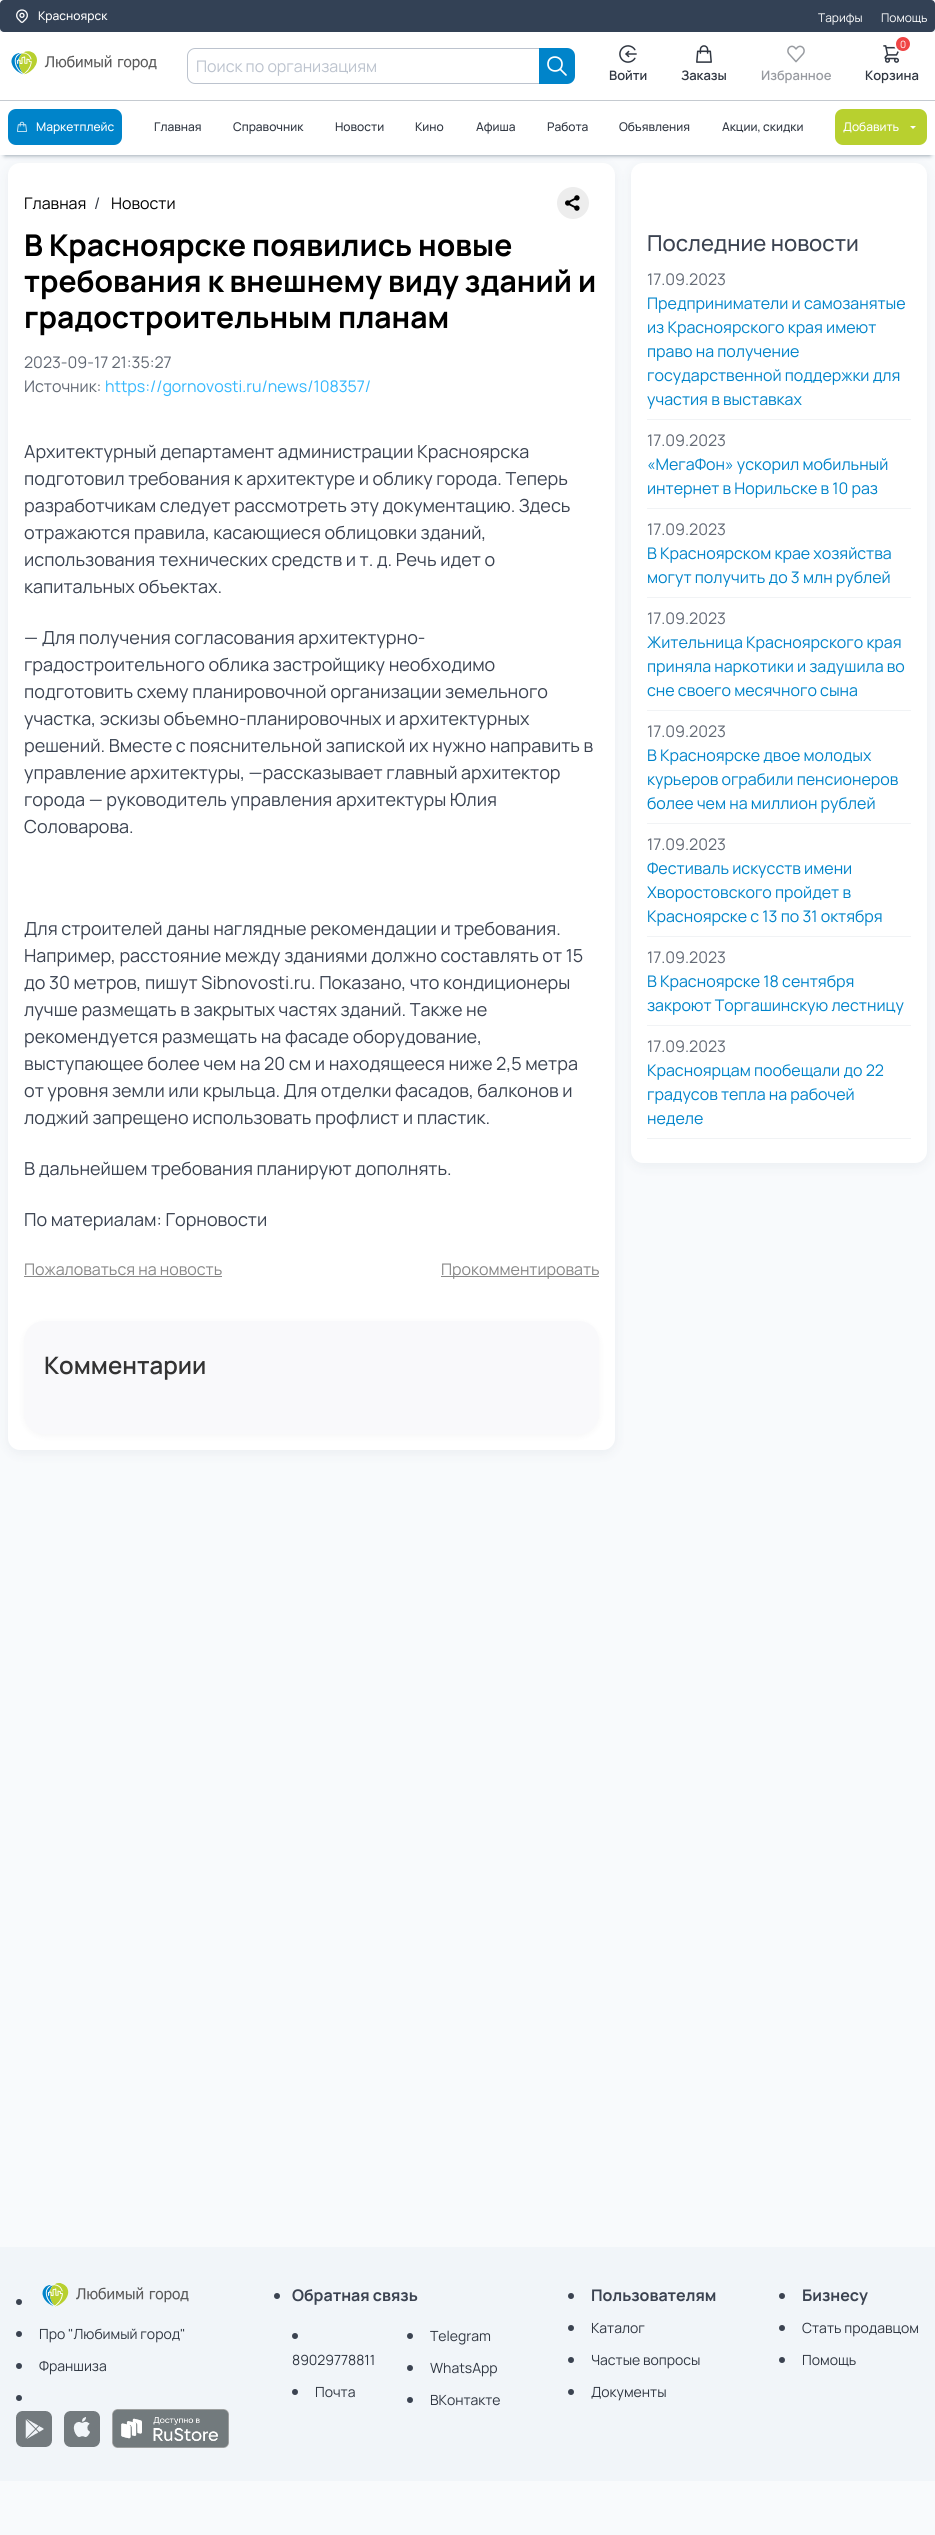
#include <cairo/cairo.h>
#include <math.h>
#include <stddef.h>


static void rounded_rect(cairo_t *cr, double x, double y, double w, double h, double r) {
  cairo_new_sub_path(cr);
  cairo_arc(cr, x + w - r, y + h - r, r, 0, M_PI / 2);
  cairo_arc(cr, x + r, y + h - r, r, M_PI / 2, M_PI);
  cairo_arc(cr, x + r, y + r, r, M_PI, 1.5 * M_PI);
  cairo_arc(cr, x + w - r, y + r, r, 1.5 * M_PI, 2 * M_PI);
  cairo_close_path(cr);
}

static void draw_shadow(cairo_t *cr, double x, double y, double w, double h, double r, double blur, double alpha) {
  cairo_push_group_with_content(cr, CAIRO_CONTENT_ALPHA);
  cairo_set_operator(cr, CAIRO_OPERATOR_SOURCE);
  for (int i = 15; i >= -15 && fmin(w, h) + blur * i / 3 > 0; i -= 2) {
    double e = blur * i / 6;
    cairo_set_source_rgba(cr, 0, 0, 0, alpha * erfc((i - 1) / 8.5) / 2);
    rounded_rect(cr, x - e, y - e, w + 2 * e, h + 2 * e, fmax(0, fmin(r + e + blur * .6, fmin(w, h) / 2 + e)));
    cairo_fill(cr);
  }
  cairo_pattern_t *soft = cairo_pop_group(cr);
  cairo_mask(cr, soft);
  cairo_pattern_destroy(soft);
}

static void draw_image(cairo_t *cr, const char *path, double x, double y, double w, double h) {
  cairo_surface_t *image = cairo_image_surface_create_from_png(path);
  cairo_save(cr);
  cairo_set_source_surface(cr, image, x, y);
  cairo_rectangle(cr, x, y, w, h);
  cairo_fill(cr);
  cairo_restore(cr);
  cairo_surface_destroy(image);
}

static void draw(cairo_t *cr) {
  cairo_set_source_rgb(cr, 248 / 255.0, 250 / 255.0, 252 / 255.0);
  cairo_paint(cr);
  cairo_set_source_rgb(cr, 34 / 255.0, 60 / 255.0, 80 / 255.0);
  draw_shadow(cr, -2, 1, 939, 36, 6, 5, 0.05);
  cairo_set_source_rgb(cr, 51 / 255.0, 65 / 255.0, 85 / 255.0);
  rounded_rect(cr, 0, 0, 935, 32, 4);
  cairo_fill(cr);
  draw_image(cr, "images/1.png", 16, 9, 12, 14);
  cairo_set_source_rgb(cr, 1, 1, 1);
  cairo_rectangle(cr, 0, 32, 935, 68);
  cairo_fill(cr);
  cairo_set_source_rgb(cr, 197 / 255.0, 202 / 255.0, 208 / 255.0);
  cairo_rectangle(cr, 0, 100, 935, 1);
  cairo_fill(cr);
  draw_image(cr, "images/2.png", 11, 51, 146, 24);
  cairo_new_path(cr);
  cairo_move_to(cr, 195, 48.5);
  cairo_line_to(cr, 539.5, 48.5);
  cairo_line_to(cr, 539.5, 83.5);
  cairo_line_to(cr, 195, 83.5);
  cairo_curve_to(cr, 191, 83.5, 187.5, 80, 187.5, 76);
  cairo_line_to(cr, 187.5, 56);
  cairo_curve_to(cr, 187.5, 52, 191, 48.5, 195, 48.5);
  cairo_close_path(cr);
  cairo_set_source_rgb(cr, 188 / 255.0, 195 / 255.0, 206 / 255.0);
  cairo_set_line_width(cr, 1);
  cairo_stroke(cr);
  cairo_set_source_rgb(cr, 0, 132 / 255.0, 202 / 255.0);
  cairo_new_path(cr);
  cairo_move_to(cr, 539, 48);
  cairo_line_to(cr, 567, 48);
  cairo_curve_to(cr, 571.5, 48, 575, 51.5, 575, 56);
  cairo_line_to(cr, 575, 76);
  cairo_curve_to(cr, 575, 80.5, 571.5, 84, 567, 84);
  cairo_line_to(cr, 539, 84);
  cairo_close_path(cr);
  cairo_fill(cr);
  cairo_new_path(cr);
  cairo_move_to(cr, 566, 75);
  cairo_line_to(cr, 560, 69);
  cairo_move_to(cr, 562, 64);
  cairo_curve_to(cr, 562, 73.5, 548, 73, 548, 64);
  cairo_curve_to(cr, 548, 54.5, 562, 55, 562, 64);
  cairo_close_path(cr);
  cairo_set_source_rgb(cr, 1, 1, 1);
  cairo_set_line_width(cr, 1.7);
  cairo_set_line_cap(cr, CAIRO_LINE_CAP_ROUND);
  cairo_set_line_join(cr, CAIRO_LINE_JOIN_ROUND);
  cairo_stroke(cr);
  draw_image(cr, "images/3.png", 619, 45, 18, 18);
  draw_image(cr, "images/4.png", 696, 45, 16, 18);
  draw_image(cr, "images/5.png", 787, 45, 18, 18);
  draw_image(cr, "images/6.png", 883, 45, 17, 18);
  cairo_arc(cr, 903, 44, 8, 0, 2 * M_PI);
  cairo_set_line_width(cr, 2);
  cairo_set_line_cap(cr, CAIRO_LINE_CAP_BUTT);
  cairo_set_line_join(cr, CAIRO_LINE_JOIN_MITER);
  cairo_stroke(cr);
  cairo_set_source_rgb(cr, 239 / 255.0, 68 / 255.0, 68 / 255.0);
  cairo_arc(cr, 903, 44, 7, 0, 2 * M_PI);
  cairo_fill(cr);
  cairo_set_source_rgb(cr, 34 / 255.0, 60 / 255.0, 80 / 255.0);
  draw_shadow(cr, 5, 111, 925, 44, 0, 2.5, 0.6);
  cairo_set_source_rgb(cr, 1, 1, 1);
  cairo_rectangle(cr, 0, 101, 935, 54);
  cairo_fill(cr);
  cairo_set_source_rgb(cr, 0, 132 / 255.0, 202 / 255.0);
  rounded_rect(cr, 8, 109, 114, 36, 8);
  cairo_fill(cr);
  draw_image(cr, "images/7.png", 17, 121, 10, 11);
  cairo_set_source_rgb(cr, 184 / 255.0, 208 / 255.0, 47 / 255.0);
  rounded_rect(cr, 835, 109, 92, 36, 8);
  cairo_fill(cr);
  cairo_set_source_rgb(cr, 1, 1, 1);
  cairo_new_path(cr);
  cairo_move_to(cr, 910, 126);
  cairo_line_to(cr, 916, 126);
  cairo_line_to(cr, 913, 129);
  cairo_close_path(cr);
  cairo_fill(cr);
  cairo_set_source_rgb(cr, 34 / 255.0, 60 / 255.0, 80 / 255.0);
  draw_shadow(cr, 6, 164, 611, 1291, 14, 5, 0.05);
  cairo_set_source_rgb(cr, 1, 1, 1);
  rounded_rect(cr, 8, 163, 607, 1287, 12);
  cairo_fill(cr);
  cairo_set_source_rgb(cr, 237 / 255.0, 237 / 255.0, 237 / 255.0);
  cairo_arc(cr, 573, 203, 16, 0, 2 * M_PI);
  cairo_fill(cr);
  draw_image(cr, "images/8.png", 565, 195, 15, 16);
  cairo_set_source_rgb(cr, 136 / 255.0, 136 / 255.0, 136 / 255.0);
  cairo_rectangle(cr, 24, 1276, 198, 1);
  cairo_fill(cr);
  cairo_rectangle(cr, 441, 1276, 158, 1);
  cairo_fill(cr);
  cairo_set_source_rgb(cr, 0, 0, 0);
  draw_shadow(cr, 24, 1323, 575, 113, 20, 4, 0.04);
  cairo_set_source_rgb(cr, 249 / 255.0, 249 / 255.0, 251 / 255.0);
  rounded_rect(cr, 24, 1321, 575, 113, 20);
  cairo_fill(cr);
  cairo_set_source_rgb(cr, 34 / 255.0, 60 / 255.0, 80 / 255.0);
  draw_shadow(cr, 629, 164, 300, 1004, 14, 5, 0.05);
  cairo_set_source_rgb(cr, 1, 1, 1);
  rounded_rect(cr, 631, 163, 296, 1000, 12);
  cairo_fill(cr);
  cairo_set_source_rgb(cr, 241 / 255.0, 243 / 255.0, 245 / 255.0);
  cairo_rectangle(cr, 647, 419, 264, 1);
  cairo_fill(cr);
  cairo_rectangle(cr, 647, 508, 264, 1);
  cairo_fill(cr);
  cairo_rectangle(cr, 647, 597, 264, 1);
  cairo_fill(cr);
  cairo_rectangle(cr, 647, 710, 264, 1);
  cairo_fill(cr);
  cairo_rectangle(cr, 647, 823, 264, 1);
  cairo_fill(cr);
  cairo_rectangle(cr, 647, 936, 264, 1);
  cairo_fill(cr);
  cairo_rectangle(cr, 647, 1025, 264, 1);
  cairo_fill(cr);
  cairo_rectangle(cr, 647, 1138, 264, 1);
  cairo_fill(cr);
  cairo_set_source_rgb(cr, 241 / 255.0, 245 / 255.0, 249 / 255.0);
  cairo_rectangle(cr, 0, 2247, 935, 234);
  cairo_fill(cr);
  cairo_set_source_rgb(cr, 59 / 255.0, 67 / 255.0, 81 / 255.0);
  cairo_arc(cr, 19, 2302, 3, 0, 2 * M_PI);
  cairo_fill(cr);
  draw_image(cr, "images/9.png", 42, 2283, 147, 24);
  cairo_arc(cr, 19, 2334, 3, 0, 2 * M_PI);
  cairo_fill(cr);
  cairo_arc(cr, 19, 2366, 3, 0, 2 * M_PI);
  cairo_fill(cr);
  cairo_arc(cr, 19, 2398, 3, 0, 2 * M_PI);
  cairo_fill(cr);
  draw_image(cr, "images/10.png", 16, 2411, 36, 36);
  draw_image(cr, "images/11.png", 64, 2411, 36, 36);
  draw_image(cr, "images/12.png", 112, 2409, 117, 39);
  cairo_arc(cr, 277, 2296, 3, 0, 2 * M_PI);
  cairo_fill(cr);
  cairo_arc(cr, 295, 2336, 3, 0, 2 * M_PI);
  cairo_fill(cr);
  cairo_arc(cr, 295, 2392, 3, 0, 2 * M_PI);
  cairo_fill(cr);
  cairo_arc(cr, 410, 2336, 3, 0, 2 * M_PI);
  cairo_fill(cr);
  cairo_arc(cr, 410, 2368, 3, 0, 2 * M_PI);
  cairo_fill(cr);
  cairo_arc(cr, 410, 2400, 3, 0, 2 * M_PI);
  cairo_fill(cr);
  cairo_arc(cr, 571, 2296, 3, 0, 2 * M_PI);
  cairo_fill(cr);
  cairo_arc(cr, 571, 2328, 3, 0, 2 * M_PI);
  cairo_fill(cr);
  cairo_arc(cr, 571, 2360, 3, 0, 2 * M_PI);
  cairo_fill(cr);
  cairo_arc(cr, 571, 2392, 3, 0, 2 * M_PI);
  cairo_fill(cr);
  cairo_arc(cr, 782, 2296, 3, 0, 2 * M_PI);
  cairo_fill(cr);
  cairo_arc(cr, 782, 2328, 3, 0, 2 * M_PI);
  cairo_fill(cr);
  cairo_arc(cr, 782, 2360, 3, 0, 2 * M_PI);
  cairo_fill(cr);
  cairo_select_font_face(cr, "Manrope Medium", CAIRO_FONT_SLANT_NORMAL, CAIRO_FONT_WEIGHT_NORMAL);
  cairo_set_font_size(cr, 12);
  cairo_set_source_rgb(cr, 1, 1, 1);
  cairo_move_to(cr, 38, 20);
  cairo_show_text(cr, "Красноярск");
  cairo_select_font_face(cr, "Manrope", CAIRO_FONT_SLANT_NORMAL, CAIRO_FONT_WEIGHT_NORMAL);
  cairo_move_to(cr, 818, 22);
  cairo_show_text(cr, "Тарифы");
  cairo_move_to(cr, 881, 22);
  cairo_show_text(cr, "Помощь");
  cairo_set_font_size(cr, 16);
  cairo_set_source_rgb(cr, 188 / 255.0, 195 / 255.0, 206 / 255.0);
  cairo_move_to(cr, 196, 72);
  cairo_show_text(cr, "Поиск по организациям");
  cairo_select_font_face(cr, "Manrope SemiBold", CAIRO_FONT_SLANT_NORMAL, CAIRO_FONT_WEIGHT_NORMAL);
  cairo_set_font_size(cr, 13);
  cairo_set_source_rgb(cr, 48 / 255.0, 55 / 255.0, 66 / 255.0);
  cairo_move_to(cr, 609, 80);
  cairo_show_text(cr, "Войти");
  cairo_move_to(cr, 681, 80);
  cairo_show_text(cr, "Заказы");
  cairo_set_source_rgb(cr, 152 / 255.0, 155 / 255.0, 161 / 255.0);
  cairo_move_to(cr, 761, 80);
  cairo_show_text(cr, "Избранное");
  cairo_select_font_face(cr, "Manrope", CAIRO_FONT_SLANT_NORMAL, CAIRO_FONT_WEIGHT_NORMAL);
  cairo_set_font_size(cr, 10);
  cairo_set_source_rgb(cr, 1, 1, 1);
  cairo_move_to(cr, 900, 48);
  cairo_show_text(cr, "0");
  cairo_select_font_face(cr, "Manrope SemiBold", CAIRO_FONT_SLANT_NORMAL, CAIRO_FONT_WEIGHT_NORMAL);
  cairo_set_font_size(cr, 13);
  cairo_set_source_rgb(cr, 48 / 255.0, 55 / 255.0, 66 / 255.0);
  cairo_move_to(cr, 865, 80);
  cairo_show_text(cr, "Корзина");
  cairo_select_font_face(cr, "Manrope Medium", CAIRO_FONT_SLANT_NORMAL, CAIRO_FONT_WEIGHT_NORMAL);
  cairo_set_font_size(cr, 12);
  cairo_set_source_rgb(cr, 1, 1, 1);
  cairo_move_to(cr, 36, 131);
  cairo_show_text(cr, "Маркетплейс");
  cairo_set_source_rgb(cr, 48 / 255.0, 55 / 255.0, 66 / 255.0);
  cairo_move_to(cr, 154, 131);
  cairo_show_text(cr, "Главная");
  cairo_move_to(cr, 233, 131);
  cairo_show_text(cr, "Справочник");
  cairo_move_to(cr, 335, 131);
  cairo_show_text(cr, "Новости");
  cairo_move_to(cr, 415, 131);
  cairo_show_text(cr, "Кино");
  cairo_move_to(cr, 476, 131);
  cairo_show_text(cr, "Афиша");
  cairo_move_to(cr, 547, 131);
  cairo_show_text(cr, "Работа");
  cairo_move_to(cr, 619, 131);
  cairo_show_text(cr, "Объявления");
  cairo_move_to(cr, 722, 131);
  cairo_show_text(cr, "Акции, скидки");
  cairo_set_source_rgb(cr, 1, 1, 1);
  cairo_move_to(cr, 843, 131);
  cairo_show_text(cr, "Добавить");
  cairo_select_font_face(cr, "Manrope", CAIRO_FONT_SLANT_NORMAL, CAIRO_FONT_WEIGHT_NORMAL);
  cairo_set_font_size(cr, 16);
  cairo_set_source_rgb(cr, 0, 0, 0);
  cairo_move_to(cr, 24, 209);
  cairo_show_text(cr, "Главная");
  cairo_set_source_rgb(cr, 48 / 255.0, 55 / 255.0, 66 / 255.0);
  cairo_move_to(cr, 94, 209);
  cairo_show_text(cr, "/");
  cairo_set_source_rgb(cr, 0, 0, 0);
  cairo_move_to(cr, 111, 209);
  cairo_show_text(cr, "Новости");
  cairo_select_font_face(cr, "Manrope", CAIRO_FONT_SLANT_NORMAL, CAIRO_FONT_WEIGHT_BOLD);
  cairo_set_font_size(cr, 30);
  cairo_move_to(cr, 24, 256);
  cairo_show_text(cr, "В Красноярске появились новые");
  cairo_move_to(cr, 24, 292);
  cairo_show_text(cr, "требования к внешнему виду зданий и");
  cairo_move_to(cr, 24, 328);
  cairo_show_text(cr, "градостроительным планам");
  cairo_select_font_face(cr, "Manrope", CAIRO_FONT_SLANT_NORMAL, CAIRO_FONT_WEIGHT_NORMAL);
  cairo_set_font_size(cr, 16);
  cairo_set_source_rgb(cr, 98 / 255.0, 105 / 255.0, 116 / 255.0);
  cairo_move_to(cr, 24, 368);
  cairo_show_text(cr, "2023-09-17 21:35:27");
  cairo_move_to(cr, 24, 392);
  cairo_show_text(cr, "Источник:");
  cairo_set_source_rgb(cr, 51 / 255.0, 183 / 255.0, 253 / 255.0);
  cairo_move_to(cr, 105, 392);
  cairo_show_text(cr, "https://gornovosti.ru/news/108357/");
  cairo_set_font_size(cr, 18);
  cairo_set_source_rgb(cr, 59 / 255.0, 67 / 255.0, 81 / 255.0);
  cairo_move_to(cr, 24, 458);
  cairo_show_text(cr, "Архитектурный департамент администрации Красноярска");
  cairo_move_to(cr, 24, 485);
  cairo_show_text(cr, "подготовил требования к архитектуре и облику города. Теперь");
  cairo_move_to(cr, 24, 512);
  cairo_show_text(cr, "разработчикам следует рассмотреть эту документацию. Здесь");
  cairo_move_to(cr, 24, 539);
  cairo_show_text(cr, "отражаются правила, касающиеся облицовки зданий,");
  cairo_move_to(cr, 24, 566);
  cairo_show_text(cr, "использования технических средств и т. д. Речь идет о");
  cairo_move_to(cr, 24, 593);
  cairo_show_text(cr, "капитальных объектах.");
  cairo_move_to(cr, 24, 644);
  cairo_show_text(cr, "— Для получения согласования архитектурно-");
  cairo_move_to(cr, 24, 671);
  cairo_show_text(cr, "градостроительного облика застройщику необходимо");
  cairo_move_to(cr, 24, 698);
  cairo_show_text(cr, "подготовить схему планировочной организации земельного");
  cairo_move_to(cr, 24, 725);
  cairo_show_text(cr, "участка, эскизы объемно-планировочных и архитектурных");
  cairo_move_to(cr, 24, 752);
  cairo_show_text(cr, "решений. Вместе с пояснительной запиской их нужно направить в");
  cairo_move_to(cr, 24, 779);
  cairo_show_text(cr, "управление архитектуры, —рассказывает главный архитектор");
  cairo_move_to(cr, 24, 806);
  cairo_show_text(cr, "города — руководитель управления архитектуры Юлия");
  cairo_move_to(cr, 24, 833);
  cairo_show_text(cr, "Соловарова.");
  cairo_move_to(cr, 24, 935);
  cairo_show_text(cr, "Для строителей даны наглядные рекомендации и требования.");
  cairo_move_to(cr, 24, 962);
  cairo_show_text(cr, "Например, расстояние между зданиями должно составлять от 15");
  cairo_move_to(cr, 24, 989);
  cairo_show_text(cr, "до 30 метров, пишут Sibnovosti.ru. Показано, что кондиционеры");
  cairo_move_to(cr, 24, 1016);
  cairo_show_text(cr, "лучше размещать в закрытых частях зданий. Также не");
  cairo_move_to(cr, 24, 1043);
  cairo_show_text(cr, "рекомендуется размещать на фасаде оборудование,");
  cairo_move_to(cr, 24, 1070);
  cairo_show_text(cr, "выступающее более чем на 20 см и находящееся ниже 2,5 метра");
  cairo_move_to(cr, 24, 1097);
  cairo_show_text(cr, "от уровня земли или крыльца. Для отделки фасадов, балконов и");
  cairo_move_to(cr, 24, 1124);
  cairo_show_text(cr, "лоджий запрещено использовать профлист и пластик.");
  cairo_move_to(cr, 24, 1175);
  cairo_show_text(cr, "В дальнейшем требования планируют дополнять.");
  cairo_move_to(cr, 24, 1226);
  cairo_show_text(cr, "По материалам: Горновости");
  cairo_set_font_size(cr, 16);
  cairo_set_source_rgb(cr, 136 / 255.0, 136 / 255.0, 136 / 255.0);
  cairo_move_to(cr, 24, 1275);
  cairo_show_text(cr, "Пожаловаться на новость");
  cairo_move_to(cr, 441, 1275);
  cairo_show_text(cr, "Прокомментировать");
  cairo_select_font_face(cr, "Manrope SemiBold", CAIRO_FONT_SLANT_NORMAL, CAIRO_FONT_WEIGHT_NORMAL);
  cairo_set_font_size(cr, 24);
  cairo_set_source_rgb(cr, 51 / 255.0, 51 / 255.0, 51 / 255.0);
  cairo_move_to(cr, 44, 1374);
  cairo_show_text(cr, "Комментарии");
  cairo_select_font_face(cr, "Manrope Medium", CAIRO_FONT_SLANT_NORMAL, CAIRO_FONT_WEIGHT_NORMAL);
  cairo_set_font_size(cr, 22);
  cairo_set_source_rgb(cr, 59 / 255.0, 67 / 255.0, 81 / 255.0);
  cairo_move_to(cr, 647, 251);
  cairo_show_text(cr, "Последние новости");
  cairo_select_font_face(cr, "Manrope", CAIRO_FONT_SLANT_NORMAL, CAIRO_FONT_WEIGHT_NORMAL);
  cairo_set_font_size(cr, 16);
  cairo_set_source_rgb(cr, 98 / 255.0, 105 / 255.0, 116 / 255.0);
  cairo_move_to(cr, 647, 285);
  cairo_show_text(cr, "17.09.2023");
  cairo_set_source_rgb(cr, 0, 132 / 255.0, 202 / 255.0);
  cairo_move_to(cr, 647, 309);
  cairo_show_text(cr, "Предприниматели и самозанятые");
  cairo_move_to(cr, 647, 333);
  cairo_show_text(cr, "из Красноярского края имеют");
  cairo_move_to(cr, 647, 357);
  cairo_show_text(cr, "право на получение");
  cairo_move_to(cr, 647, 381);
  cairo_show_text(cr, "государственной поддержки для");
  cairo_move_to(cr, 647, 405);
  cairo_show_text(cr, "участия в выставках");
  cairo_set_source_rgb(cr, 98 / 255.0, 105 / 255.0, 116 / 255.0);
  cairo_move_to(cr, 647, 446);
  cairo_show_text(cr, "17.09.2023");
  cairo_set_source_rgb(cr, 0, 132 / 255.0, 202 / 255.0);
  cairo_move_to(cr, 647, 470);
  cairo_show_text(cr, "«МегаФон» ускорил мобильный");
  cairo_move_to(cr, 647, 494);
  cairo_show_text(cr, "интернет в Норильске в 10 раз");
  cairo_set_source_rgb(cr, 98 / 255.0, 105 / 255.0, 116 / 255.0);
  cairo_move_to(cr, 647, 535);
  cairo_show_text(cr, "17.09.2023");
  cairo_set_source_rgb(cr, 0, 132 / 255.0, 202 / 255.0);
  cairo_move_to(cr, 647, 559);
  cairo_show_text(cr, "В Красноярском крае хозяйства");
  cairo_move_to(cr, 647, 583);
  cairo_show_text(cr, "могут получить до 3 млн рублей");
  cairo_set_source_rgb(cr, 98 / 255.0, 105 / 255.0, 116 / 255.0);
  cairo_move_to(cr, 647, 624);
  cairo_show_text(cr, "17.09.2023");
  cairo_set_source_rgb(cr, 0, 132 / 255.0, 202 / 255.0);
  cairo_move_to(cr, 647, 648);
  cairo_show_text(cr, "Жительница Красноярского края");
  cairo_move_to(cr, 647, 672);
  cairo_show_text(cr, "приняла наркотики и задушила во");
  cairo_move_to(cr, 647, 696);
  cairo_show_text(cr, "сне своего месячного сына");
  cairo_set_source_rgb(cr, 98 / 255.0, 105 / 255.0, 116 / 255.0);
  cairo_move_to(cr, 647, 737);
  cairo_show_text(cr, "17.09.2023");
  cairo_set_source_rgb(cr, 0, 132 / 255.0, 202 / 255.0);
  cairo_move_to(cr, 647, 761);
  cairo_show_text(cr, "В Красноярске двое молодых");
  cairo_move_to(cr, 647, 785);
  cairo_show_text(cr, "курьеров ограбили пенсионеров");
  cairo_move_to(cr, 647, 809);
  cairo_show_text(cr, "более чем на миллион рублей");
  cairo_set_source_rgb(cr, 98 / 255.0, 105 / 255.0, 116 / 255.0);
  cairo_move_to(cr, 647, 850);
  cairo_show_text(cr, "17.09.2023");
  cairo_set_source_rgb(cr, 0, 132 / 255.0, 202 / 255.0);
  cairo_move_to(cr, 647, 874);
  cairo_show_text(cr, "Фестиваль искусств имени");
  cairo_move_to(cr, 647, 898);
  cairo_show_text(cr, "Хворостовского пройдет в");
  cairo_move_to(cr, 647, 922);
  cairo_show_text(cr, "Красноярске с 13 по 31 октября");
  cairo_set_source_rgb(cr, 98 / 255.0, 105 / 255.0, 116 / 255.0);
  cairo_move_to(cr, 647, 963);
  cairo_show_text(cr, "17.09.2023");
  cairo_set_source_rgb(cr, 0, 132 / 255.0, 202 / 255.0);
  cairo_move_to(cr, 647, 987);
  cairo_show_text(cr, "В Красноярске 18 сентября");
  cairo_move_to(cr, 647, 1011);
  cairo_show_text(cr, "закроют Торгашинскую лестницу");
  cairo_set_source_rgb(cr, 98 / 255.0, 105 / 255.0, 116 / 255.0);
  cairo_move_to(cr, 647, 1052);
  cairo_show_text(cr, "17.09.2023");
  cairo_set_source_rgb(cr, 0, 132 / 255.0, 202 / 255.0);
  cairo_move_to(cr, 647, 1076);
  cairo_show_text(cr, "Красноярцам пообещали до 22");
  cairo_move_to(cr, 647, 1100);
  cairo_show_text(cr, "градусов тепла на рабочей");
  cairo_move_to(cr, 647, 1124);
  cairo_show_text(cr, "неделе");
  cairo_set_font_size(cr, 14);
  cairo_set_source_rgb(cr, 48 / 255.0, 55 / 255.0, 66 / 255.0);
  cairo_move_to(cr, 39, 2339);
  cairo_show_text(cr, "Про \"Любимый город\"");
  cairo_move_to(cr, 39, 2371);
  cairo_show_text(cr, "Франшиза");
  cairo_select_font_face(cr, "Manrope", CAIRO_FONT_SLANT_NORMAL, CAIRO_FONT_WEIGHT_BOLD);
  cairo_set_font_size(cr, 16);
  cairo_set_source_rgb(cr, 59 / 255.0, 67 / 255.0, 81 / 255.0);
  cairo_move_to(cr, 292, 2301);
  cairo_show_text(cr, "Обратная связь");
  cairo_select_font_face(cr, "Manrope", CAIRO_FONT_SLANT_NORMAL, CAIRO_FONT_WEIGHT_NORMAL);
  cairo_set_font_size(cr, 14);
  cairo_set_source_rgb(cr, 48 / 255.0, 55 / 255.0, 66 / 255.0);
  cairo_move_to(cr, 292, 2365);
  cairo_show_text(cr, "89029778811");
  cairo_move_to(cr, 315, 2397);
  cairo_show_text(cr, "Почта");
  cairo_move_to(cr, 430, 2341);
  cairo_show_text(cr, "Telegram");
  cairo_move_to(cr, 430, 2373);
  cairo_show_text(cr, "WhatsApp");
  cairo_move_to(cr, 430, 2405);
  cairo_show_text(cr, "ВКонтакте");
  cairo_select_font_face(cr, "Manrope", CAIRO_FONT_SLANT_NORMAL, CAIRO_FONT_WEIGHT_BOLD);
  cairo_set_font_size(cr, 16);
  cairo_set_source_rgb(cr, 59 / 255.0, 67 / 255.0, 81 / 255.0);
  cairo_move_to(cr, 591, 2301);
  cairo_show_text(cr, "Пользователям");
  cairo_select_font_face(cr, "Manrope", CAIRO_FONT_SLANT_NORMAL, CAIRO_FONT_WEIGHT_NORMAL);
  cairo_set_font_size(cr, 14);
  cairo_set_source_rgb(cr, 48 / 255.0, 55 / 255.0, 66 / 255.0);
  cairo_move_to(cr, 591, 2333);
  cairo_show_text(cr, "Каталог");
  cairo_move_to(cr, 591, 2365);
  cairo_show_text(cr, "Частые вопросы");
  cairo_move_to(cr, 591, 2397);
  cairo_show_text(cr, "Документы");
  cairo_select_font_face(cr, "Manrope", CAIRO_FONT_SLANT_NORMAL, CAIRO_FONT_WEIGHT_BOLD);
  cairo_set_font_size(cr, 16);
  cairo_set_source_rgb(cr, 59 / 255.0, 67 / 255.0, 81 / 255.0);
  cairo_move_to(cr, 802, 2301);
  cairo_show_text(cr, "Бизнесу");
  cairo_select_font_face(cr, "Manrope", CAIRO_FONT_SLANT_NORMAL, CAIRO_FONT_WEIGHT_NORMAL);
  cairo_set_font_size(cr, 14);
  cairo_set_source_rgb(cr, 48 / 255.0, 55 / 255.0, 66 / 255.0);
  cairo_move_to(cr, 802, 2333);
  cairo_show_text(cr, "Стать продавцом");
  cairo_move_to(cr, 802, 2365);
  cairo_show_text(cr, "Помощь");
}

int main(void) {
  cairo_surface_t *surface = cairo_image_surface_create(CAIRO_FORMAT_RGB24, 935, 2535);
  cairo_t *cr = cairo_create(surface);
  cairo_font_options_t *options = cairo_font_options_create();
  cairo_font_options_set_hint_metrics(options, CAIRO_HINT_METRICS_OFF);
  cairo_font_options_set_hint_style(options, CAIRO_HINT_STYLE_NONE);
  cairo_set_font_options(cr, options);
  cairo_set_miter_limit(cr, 4);
  draw(cr);
  cairo_surface_write_to_png(surface, "out.png");
  cairo_font_options_destroy(options);
  cairo_destroy(cr);
  cairo_surface_destroy(surface);
  return 0;
}
